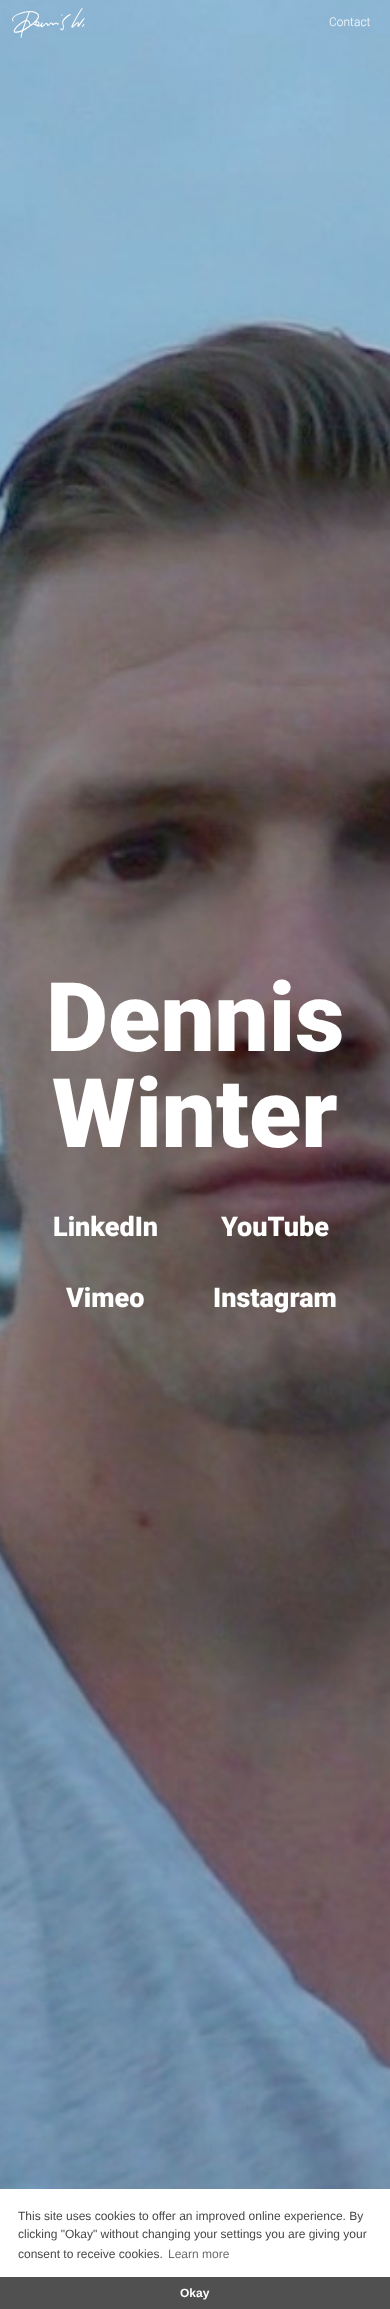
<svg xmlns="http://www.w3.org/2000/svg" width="390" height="2309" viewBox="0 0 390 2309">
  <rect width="100%" height="100%" fill="#fff"/>
  <image x="0" y="0" width="390" height="2189" href="img/1.png"/>
  <image x="12" y="8" width="73" height="30" href="img/2.png"/>
  <path d="M0 2277h390v32H0z" fill="#505050"/>
  <text x="329" y="26" font-family="Roboto" font-size="12" font-weight="300" fill="#fff">Contact</text>
  <g font-family="Roboto" font-size="96" font-weight="900" fill="#fff">
    <text x="46" y="1051">Dennis</text>
    <text x="52" y="1147">Winter</text>
  </g>
  <g font-family="Roboto" font-size="27" font-weight="900" fill="#fff">
    <text x="53" y="1236">LinkedIn</text>
    <text x="221" y="1236">YouTube</text>
    <text x="66" y="1307">Vimeo</text>
    <text x="213" y="1307">Instagram</text>
  </g>
  <g font-family="Liberation Sans" font-size="12" fill="#474747">
    <text x="18" y="2220">This site uses cookies to offer an improved online experience. By</text>
    <text x="18" y="2238">clicking "Okay" without changing your settings you are giving your</text>
    <text x="18" y="2258">consent to receive cookies.</text>
  </g>
  <text x="168" y="2258" font-family="Liberation Sans" font-size="12" fill="#6c6c6c">Learn more</text>
  <text x="180" y="2297" font-family="Liberation Sans" font-size="12" font-weight="bold" fill="#fff">Okay</text>
</svg>
